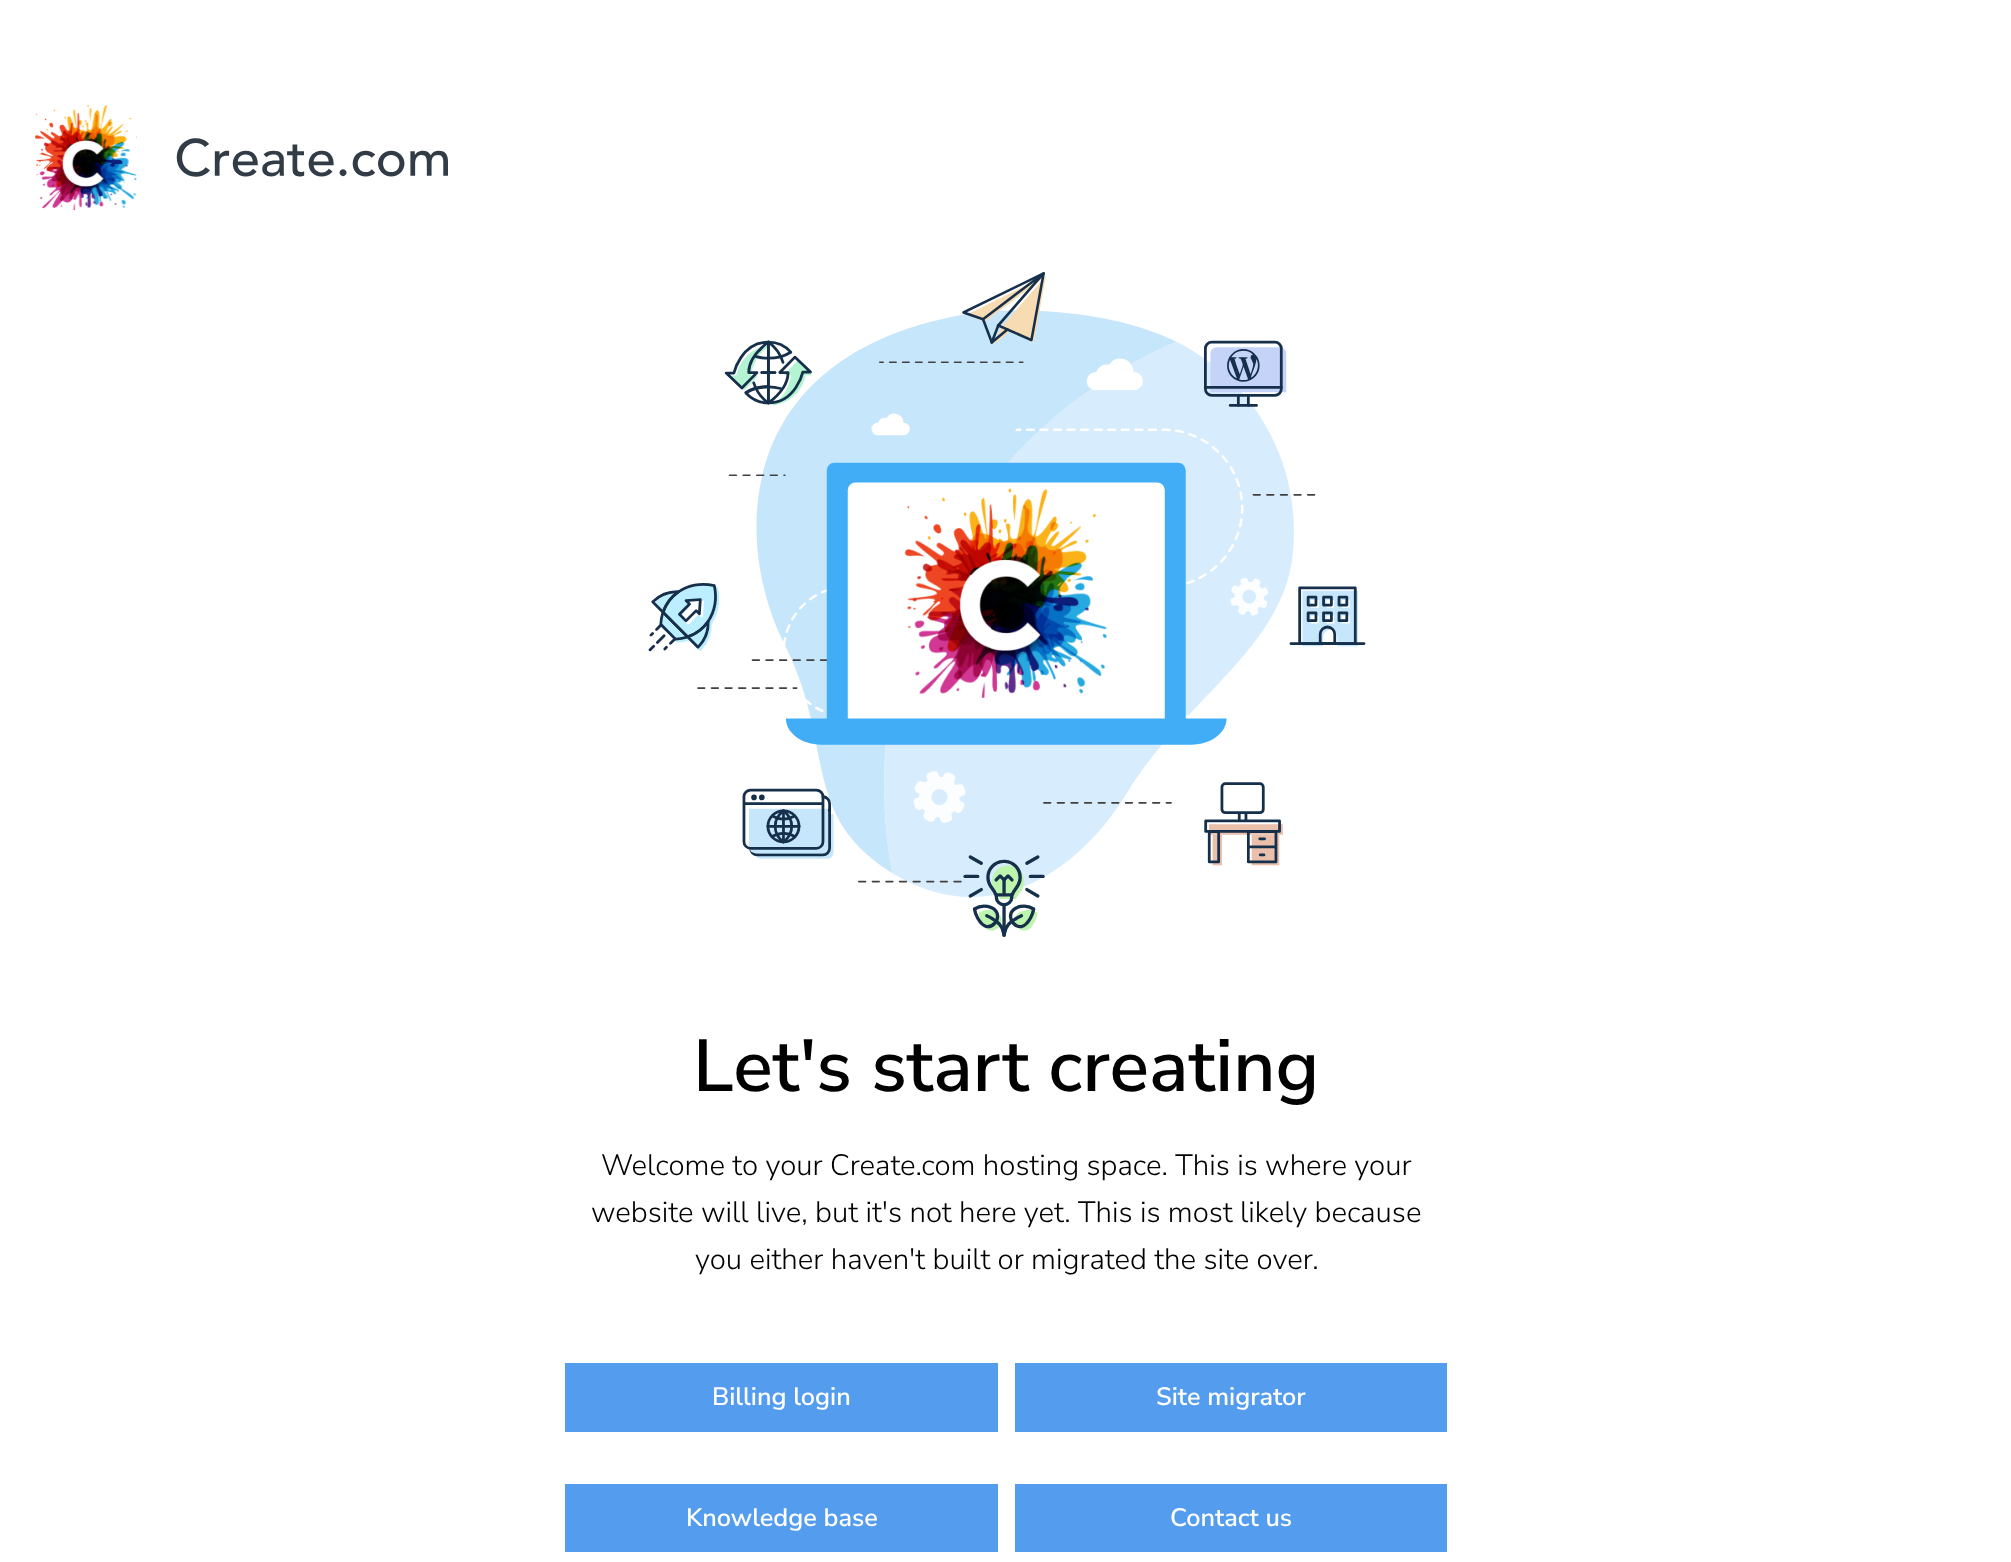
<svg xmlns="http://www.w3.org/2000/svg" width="2011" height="1562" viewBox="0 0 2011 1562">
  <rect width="100%" height="100%" fill="#fff"/>
  <image x="35" y="105" width="413" height="105" href="img/1.png"/>
  <image x="648" y="272" width="718" height="665" href="img/2.png"/>
  <path d="M565 1363h433v69H565z" fill="#539cee"/>
  <path d="M1015 1363h432v69H1015z" fill="#539cee"/>
  <path d="M565 1484h433v68H565z" fill="#539cee"/>
  <path d="M1015 1484h432v68H1015z" fill="#539cee"/>
  <text x="693" y="1091" font-family="Nunito Sans" font-size="73.5" font-weight="600" fill="#000">Let's start creating</text>
  <g font-family="Nunito Sans" font-size="29.4" font-weight="300" fill="#000">
    <text x="601" y="1175">Welcome to your Create.com hosting space. This is where your</text>
    <text x="591" y="1222">website will live, but it's not here yet. This is most likely because</text>
    <text x="695" y="1269">you either haven't built or migrated the site over.</text>
  </g>
  <g font-family="Nunito Sans" font-size="25.25" font-weight="600" fill="#fff">
    <text x="712" y="1405">Billing login</text>
    <text x="1156" y="1405">Site migrator</text>
    <text x="686" y="1526">Knowledge base</text>
    <text x="1170" y="1526">Contact us</text>
  </g>
</svg>
